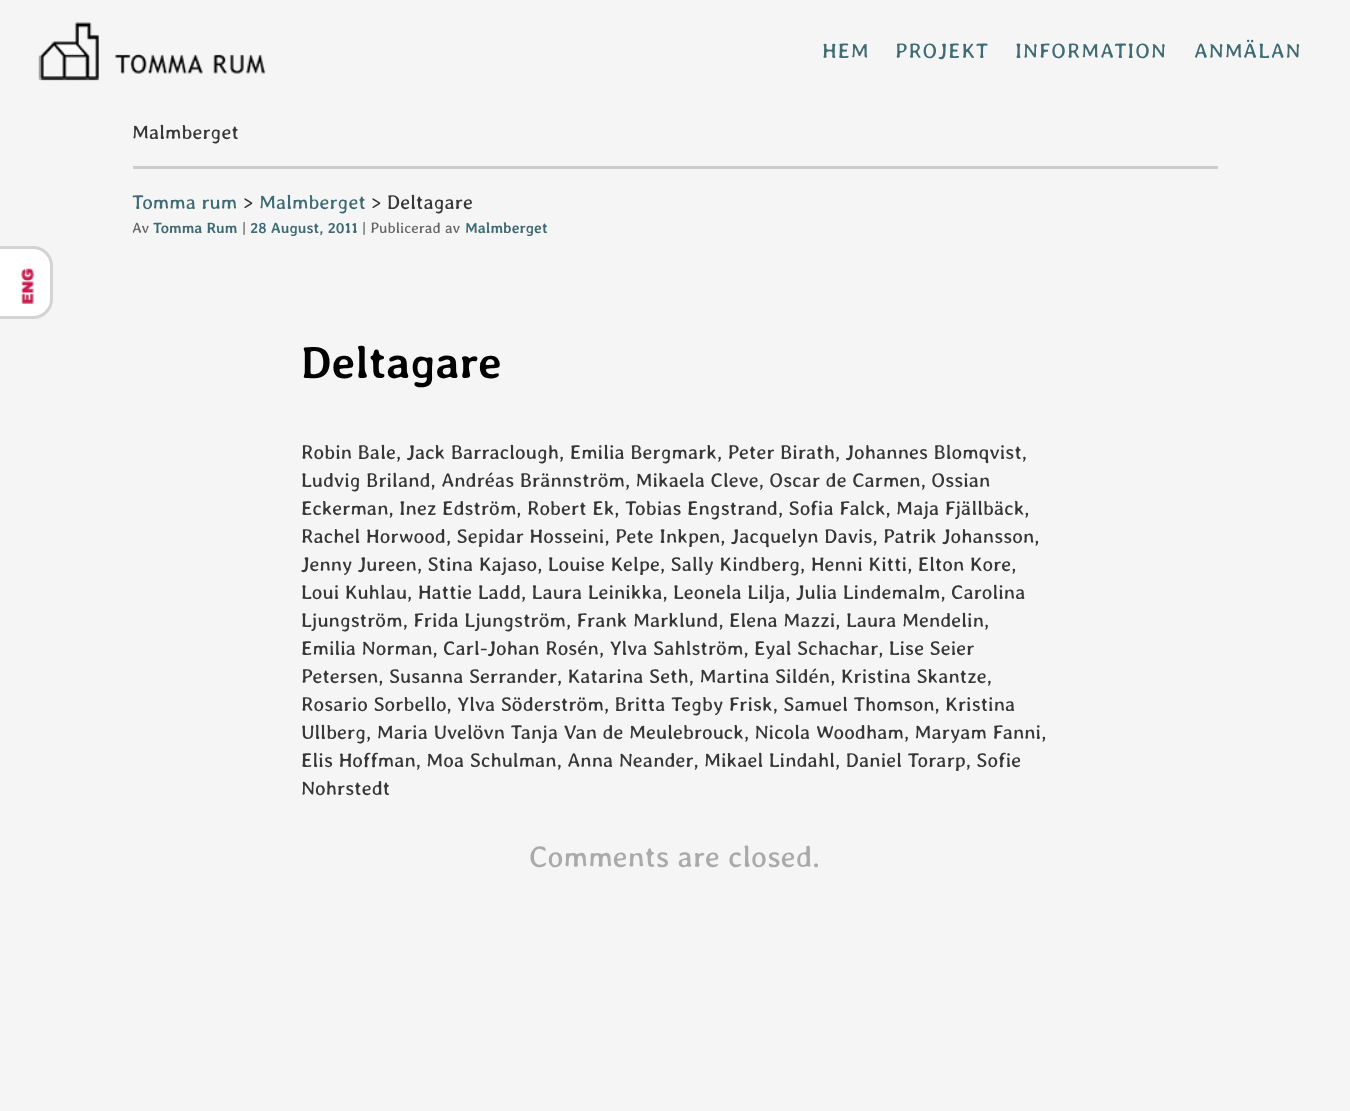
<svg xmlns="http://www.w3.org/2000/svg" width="1350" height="1111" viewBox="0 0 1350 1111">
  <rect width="100%" height="100%" fill="#f5f5f5"/>
  <image x="38" y="22" width="228" height="59" href="img/1.png"/>
  <rect x="-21.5" y="247.5" width="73" height="70" rx="18.5" fill="#fff" stroke="#d3d3d3" stroke-width="3"/>
  <image x="21" y="268" width="13" height="36" href="img/2.png"/>
  <path d="M133 166h1085v3H133z" fill="#ccc"/>
  <g font-family="Averia Libre" font-size="21" letter-spacing="1" fill="#3f6b74">
    <text x="822" y="58">HEM</text>
    <text x="895" y="58">PROJEKT</text>
    <text x="1015" y="58">INFORMATION</text>
    <text x="1194" y="58">ANMÄLAN</text>
  </g>
  <text x="132" y="139" font-family="Averia Libre" font-size="20" fill="#373737">Malmberget</text>
  <text x="132" y="209" font-family="Averia Libre" font-size="20" fill="#3f6b74">Tomma rum</text>
  <text x="243" y="209" font-family="Averia Libre" font-size="20" fill="#373737">&gt;</text>
  <text x="259" y="209" font-family="Averia Libre" font-size="20" fill="#3f6b74">Malmberget</text>
  <text x="371" y="209" font-family="Averia Libre" font-size="20" fill="#373737">&gt; Deltagare</text>
  <text x="132" y="233" font-family="Averia Libre" font-size="15" fill="#666">Av</text>
  <text x="153" y="233" font-family="Averia Libre" font-size="15" font-weight="bold" fill="#3f6b74">Tomma Rum</text>
  <text x="242" y="233" font-family="Averia Libre" font-size="15" fill="#666">|</text>
  <text x="250" y="233" font-family="Averia Libre" font-size="15" font-weight="bold" fill="#3f6b74">28 August, 2011</text>
  <text x="362" y="233" font-family="Averia Libre" font-size="15" fill="#666">| Publicerad av</text>
  <text x="465" y="233" font-family="Averia Libre" font-size="15" font-weight="bold" fill="#3f6b74">Malmberget</text>
  <text x="301" y="378" font-family="Averia Libre" font-size="45" font-weight="bold" fill="#000">Deltagare</text>
  <g font-family="Averia Libre" font-size="20" fill="#373737">
    <text x="301" y="459">Robin Bale, Jack Barraclough, Emilia Bergmark, Peter Birath, Johannes Blomqvist,</text>
    <text x="301" y="487">Ludvig Briland, Andréas Brännström, Mikaela Cleve, Oscar de Carmen, Ossian</text>
    <text x="301" y="515">Eckerman, Inez Edström, Robert Ek, Tobias Engstrand, Sofia Falck, Maja Fjällbäck,</text>
    <text x="301" y="543">Rachel Horwood, Sepidar Hosseini, Pete Inkpen, Jacquelyn Davis, Patrik Johansson,</text>
    <text x="301" y="571">Jenny Jureen, Stina Kajaso, Louise Kelpe, Sally Kindberg, Henni Kitti, Elton Kore,</text>
    <text x="301" y="599">Loui Kuhlau, Hattie Ladd, Laura Leinikka, Leonela Lilja, Julia Lindemalm, Carolina</text>
    <text x="301" y="627">Ljungström, Frida Ljungström, Frank Marklund, Elena Mazzi, Laura Mendelin,</text>
    <text x="301" y="655">Emilia Norman, Carl-Johan Rosén, Ylva Sahlström, Eyal Schachar, Lise Seier</text>
    <text x="301" y="683">Petersen, Susanna Serrander, Katarina Seth, Martina Sildén, Kristina Skantze,</text>
    <text x="301" y="711">Rosario Sorbello, Ylva Söderström, Britta Tegby Frisk, Samuel Thomson, Kristina</text>
    <text x="301" y="739">Ullberg, Maria Uvelövn Tanja Van de Meulebrouck, Nicola Woodham, Maryam Fanni,</text>
    <text x="301" y="767">Elis Hoffman, Moa Schulman, Anna Neander, Mikael Lindahl, Daniel Torarp, Sofie</text>
    <text x="301" y="795">Nohrstedt</text>
  </g>
  <text x="529" y="867" font-family="Averia Libre" font-size="30" fill="#aaa">Comments are closed.</text>
</svg>
